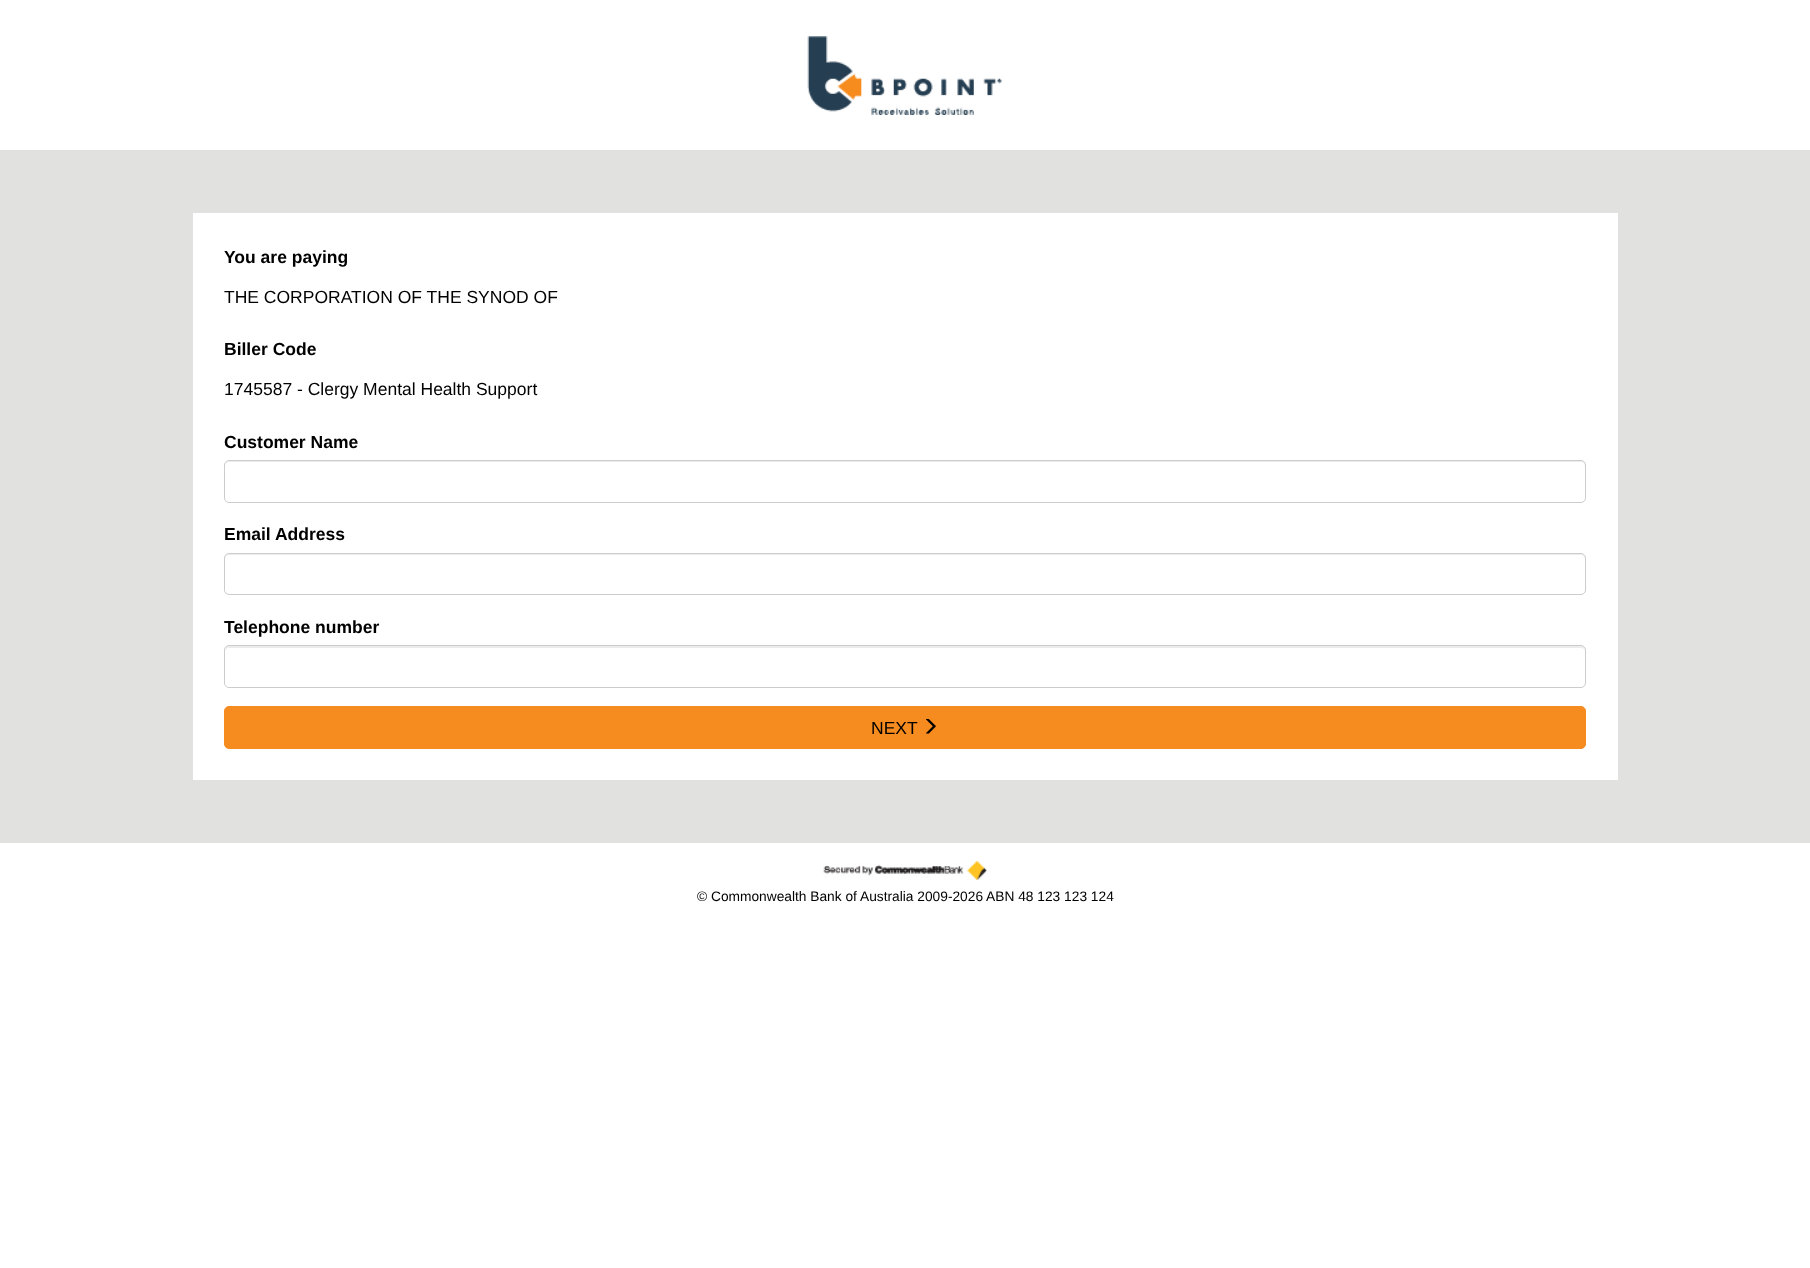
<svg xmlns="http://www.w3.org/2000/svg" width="1810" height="1268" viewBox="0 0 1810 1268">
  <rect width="100%" height="100%" fill="#fff"/>
  <image x="807" y="36" width="196" height="79" href="img/1.png"/>
  <path d="M0 150h1810v693H0z" fill="#e1e1e0"/>
  <path d="M193 213h1425v567H193z" fill="#fff"/>
  <path d="M229 462H1581C1583 462 1585 464 1585 466V465C1585 463 1583 461 1581 461H229C227 461 225 463 225 465V466C225 464 227 462 229 462Z" fill="#ececec"/>
  <rect x="224.5" y="460.5" width="1361" height="42" rx="4.5" fill="none" stroke="#ccc"/>
  <path d="M229 555H1581C1583 555 1585 557 1585 559V558C1585 556 1583 554 1581 554H229C227 554 225 556 225 558V559C225 557 227 555 229 555Z" fill="#ececec"/>
  <rect x="224.5" y="553.5" width="1361" height="41" rx="4.5" fill="none" stroke="#ccc"/>
  <path d="M229 648H1581C1583 648 1585 649 1585 651V650C1585 648 1583 646 1581 646H229C227 646 225 648 225 650V651C225 649 227 648 229 648Z" fill="#ececec"/>
  <rect x="224.5" y="645.5" width="1361" height="42" rx="4.5" fill="none" stroke="#ccc"/>
  <rect x="224.5" y="706.5" width="1361" height="42" rx="4.5" fill="#f68b1f" stroke="#f68b1f"/>
  <image x="926" y="719" width="10" height="15" href="img/2.png"/>
  <image x="823" y="861" width="164" height="19" href="img/3.png"/>
  <text x="224" y="263" font-family="Liberation Sans" font-size="17.5" font-weight="bold" fill="#000">You are paying</text>
  <text x="224" y="303" font-family="Liberation Sans" font-size="17.5" fill="#000">THE CORPORATION OF THE SYNOD OF</text>
  <text x="224" y="355" font-family="Liberation Sans" font-size="17.5" font-weight="bold" fill="#000">Biller Code</text>
  <text x="224" y="395" font-family="Liberation Sans" font-size="17.5" fill="#000">1745587 - Clergy Mental Health Support</text>
  <g font-family="Liberation Sans" font-size="17.5" font-weight="bold" fill="#000">
    <text x="224" y="448">Customer Name</text>
    <text x="224" y="540">Email Address</text>
    <text x="224" y="633">Telephone number</text>
  </g>
  <text x="871" y="734" font-family="Liberation Sans" font-size="17.5" fill="#000">NEXT</text>
  <text x="697" y="901" font-family="Liberation Sans" font-size="13.75" fill="#000">© Commonwealth Bank of Australia 2009-2026 ABN 48 123 123 124</text>
</svg>
